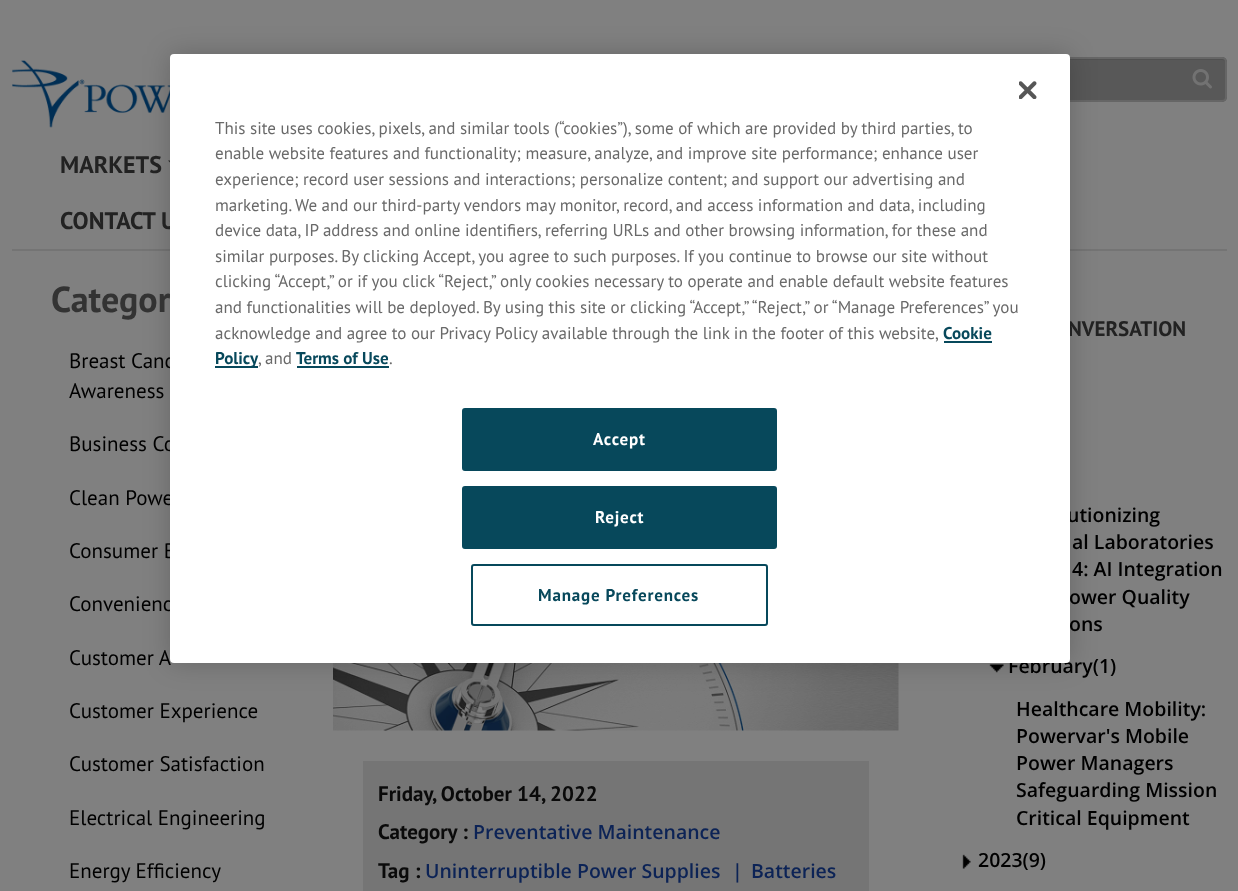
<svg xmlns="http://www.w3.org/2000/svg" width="1238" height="891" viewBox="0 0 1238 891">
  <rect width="100%" height="100%" fill="#808080"/>
  <image x="12" y="60" width="158" height="68" href="img/2.png"/>
  <rect x="887" y="57" width="340" height="45" rx="5" fill="#585858"/>
  <path d="M891 60H1222C1224 60 1226 61 1226 63C1226 61 1225 59 1223 59H891C889 59 888 61 888 63C888 61 889 60 891 60Z" fill="#515151"/>
  <rect x="888" y="58" width="338" height="43" rx="4" fill="none" stroke="#666" stroke-width="2"/>
  <path d="M12 249h1215v2H12z" fill="#747474"/>
  <path d="M168 160.5H183L175.5 168Z" fill="#2b2b2b"/>
  <image x="333" y="663" width="566" height="68" href="img/4.png"/>
  <image x="989" y="664" width="15" height="9" href="img/5.png"/>
  <rect x="170" y="54" width="900" height="609" rx="4" fill="#00000033" filter="blur(13.5px)"/>
  <image x="1192" y="69" width="20" height="20" href="img/3.png"/>
  <path d="M363 761h506v130H363z" fill="#757575"/>
  <image x="962" y="854" width="9" height="15" href="img/6.png"/>
  <g font-family="PT Sans" font-size="24" font-weight="bold" fill="#222">
    <text x="60" y="173">MARKETS</text>
    <text x="60" y="229">CONTACT U</text>
  </g>
  <text x="51" y="312" font-family="PT Sans" font-size="36" font-weight="bold" fill="#333">Categor</text>
  <g font-family="PT Sans" font-size="21" fill="#000">
    <text x="69" y="368">Breast Canc</text>
    <text x="69" y="398">Awareness</text>
    <text x="69" y="451">Business Co</text>
    <text x="69" y="505">Clean Powe</text>
    <text x="69" y="558">Consumer B</text>
    <text x="69" y="611">Convenienc</text>
    <text x="69" y="665">Customer A</text>
    <text x="69" y="718">Customer Experience</text>
    <text x="69" y="771">Customer Satisfaction</text>
    <text x="69" y="825">Electrical Engineering</text>
    <text x="69" y="878">Energy Efficiency</text>
  </g>
  <g font-family="PT Sans" font-size="21" font-weight="bold" fill="#0a0a0a">
    <text x="378" y="801">Friday, October 14, 2022</text>
    <text x="378" y="839">Category :</text>
  </g>
  <text x="473" y="839" font-family="Open Sans" font-size="19.5" font-weight="600" fill="#0c2356">Preventative Maintenance</text>
  <text x="378" y="878" font-family="PT Sans" font-size="21" font-weight="bold" fill="#0a0a0a">Tag :</text>
  <g font-family="Open Sans" font-size="19.5" font-weight="600" fill="#0c2356">
    <text x="425" y="878">Uninterruptible Power Supplies</text>
    <text x="732" y="878">|</text>
    <text x="751" y="878">Batteries</text>
  </g>
  <text x="1068" y="336" font-family="PT Sans" font-size="21" font-weight="bold" fill="#222">NVERSATION</text>
  <g font-family="Open Sans" font-size="19.5" font-weight="600" fill="#000">
    <text x="1067" y="522">utionizing</text>
    <text x="1072" y="549">al Laboratories</text>
    <text x="1072" y="576">4: AI Integration</text>
    <text x="1069" y="604">ower Quality</text>
    <text x="1069" y="631">ons</text>
    <text x="1008" y="673">February(1)</text>
  </g>
  <rect x="170" y="54" width="900" height="609" rx="4" fill="#fff"/>
  <image x="1019" y="81" width="18" height="18" href="img/1.png"/>
  <rect x="463" y="409" width="313" height="61" rx="2" fill="#07485b" stroke="#07485b" stroke-width="2"/>
  <text x="593" y="445" font-family="PT Sans" font-size="17.05" font-weight="bold" letter-spacing="0.8" fill="#fff">Accept</text>
  <rect x="463" y="487" width="313" height="61" rx="2" fill="#07485b" stroke="#07485b" stroke-width="2"/>
  <text x="595" y="523" font-family="PT Sans" font-size="17.05" font-weight="bold" letter-spacing="0.8" fill="#fff">Reject</text>
  <rect x="472" y="565" width="295" height="60" rx="2" fill="none" stroke="#07485b" stroke-width="2"/>
  <text x="538" y="601" font-family="PT Sans" font-size="17.05" font-weight="bold" letter-spacing="0.8" fill="#07485b">Manage Preferences</text>
  <text x="389" y="364" font-family="PT Sans" font-size="17.05" fill="#696969">.</text>
  <text x="296" y="364" font-family="PT Sans" font-size="17.05" font-weight="bold" fill="#07485b">Terms of Use</text>
  <path d="M297 366h92v2H297z" fill="#07485b"/>
  <text x="258" y="364" font-family="PT Sans" font-size="17.05" fill="#696969">, and</text>
  <path d="M215 366h43v2H215z" fill="#07485b"/>
  <g font-family="PT Sans" font-size="17.05" font-weight="bold" fill="#07485b">
    <text x="215" y="364">Policy</text>
    <text x="943" y="339">Cookie</text>
  </g>
  <path d="M944 341h48v2H944z" fill="#07485b"/>
  <g font-family="PT Sans" font-size="17.05" fill="#696969">
    <text x="215" y="339">acknowledge and agree to our Privacy Policy available through the link in the footer of this website,</text>
    <text x="215" y="313">and functionalities will be deployed. By using this site or clicking “Accept,” “Reject,” or “Manage Preferences” you</text>
    <text x="215" y="287">clicking “Accept,” or if you click “Reject,” only cookies necessary to operate and enable default website features</text>
    <text x="215" y="262">similar purposes. By clicking Accept, you agree to such purposes. If you continue to browse our site without</text>
    <text x="215" y="236">device data, IP address and online identifiers, referring URLs and other browsing information, for these and</text>
    <text x="215" y="211">marketing. We and our third-party vendors may monitor, record, and access information and data, including</text>
    <text x="215" y="185">experience; record user sessions and interactions; personalize content; and support our advertising and</text>
    <text x="215" y="159">enable website features and functionality; measure, analyze, and improve site performance; enhance user</text>
    <text x="215" y="134">This site uses cookies, pixels, and similar tools (“cookies”), some of which are provided by third parties, to</text>
  </g>
  <g font-family="Open Sans" font-size="19.5" font-weight="600" fill="#000">
    <text x="1016" y="716">Healthcare Mobility:</text>
    <text x="1016" y="743">Powervar's Mobile</text>
    <text x="1016" y="770">Power Managers</text>
    <text x="1016" y="797">Safeguarding Mission</text>
    <text x="1016" y="825">Critical Equipment</text>
    <text x="978" y="867">2023(9)</text>
  </g>
</svg>
